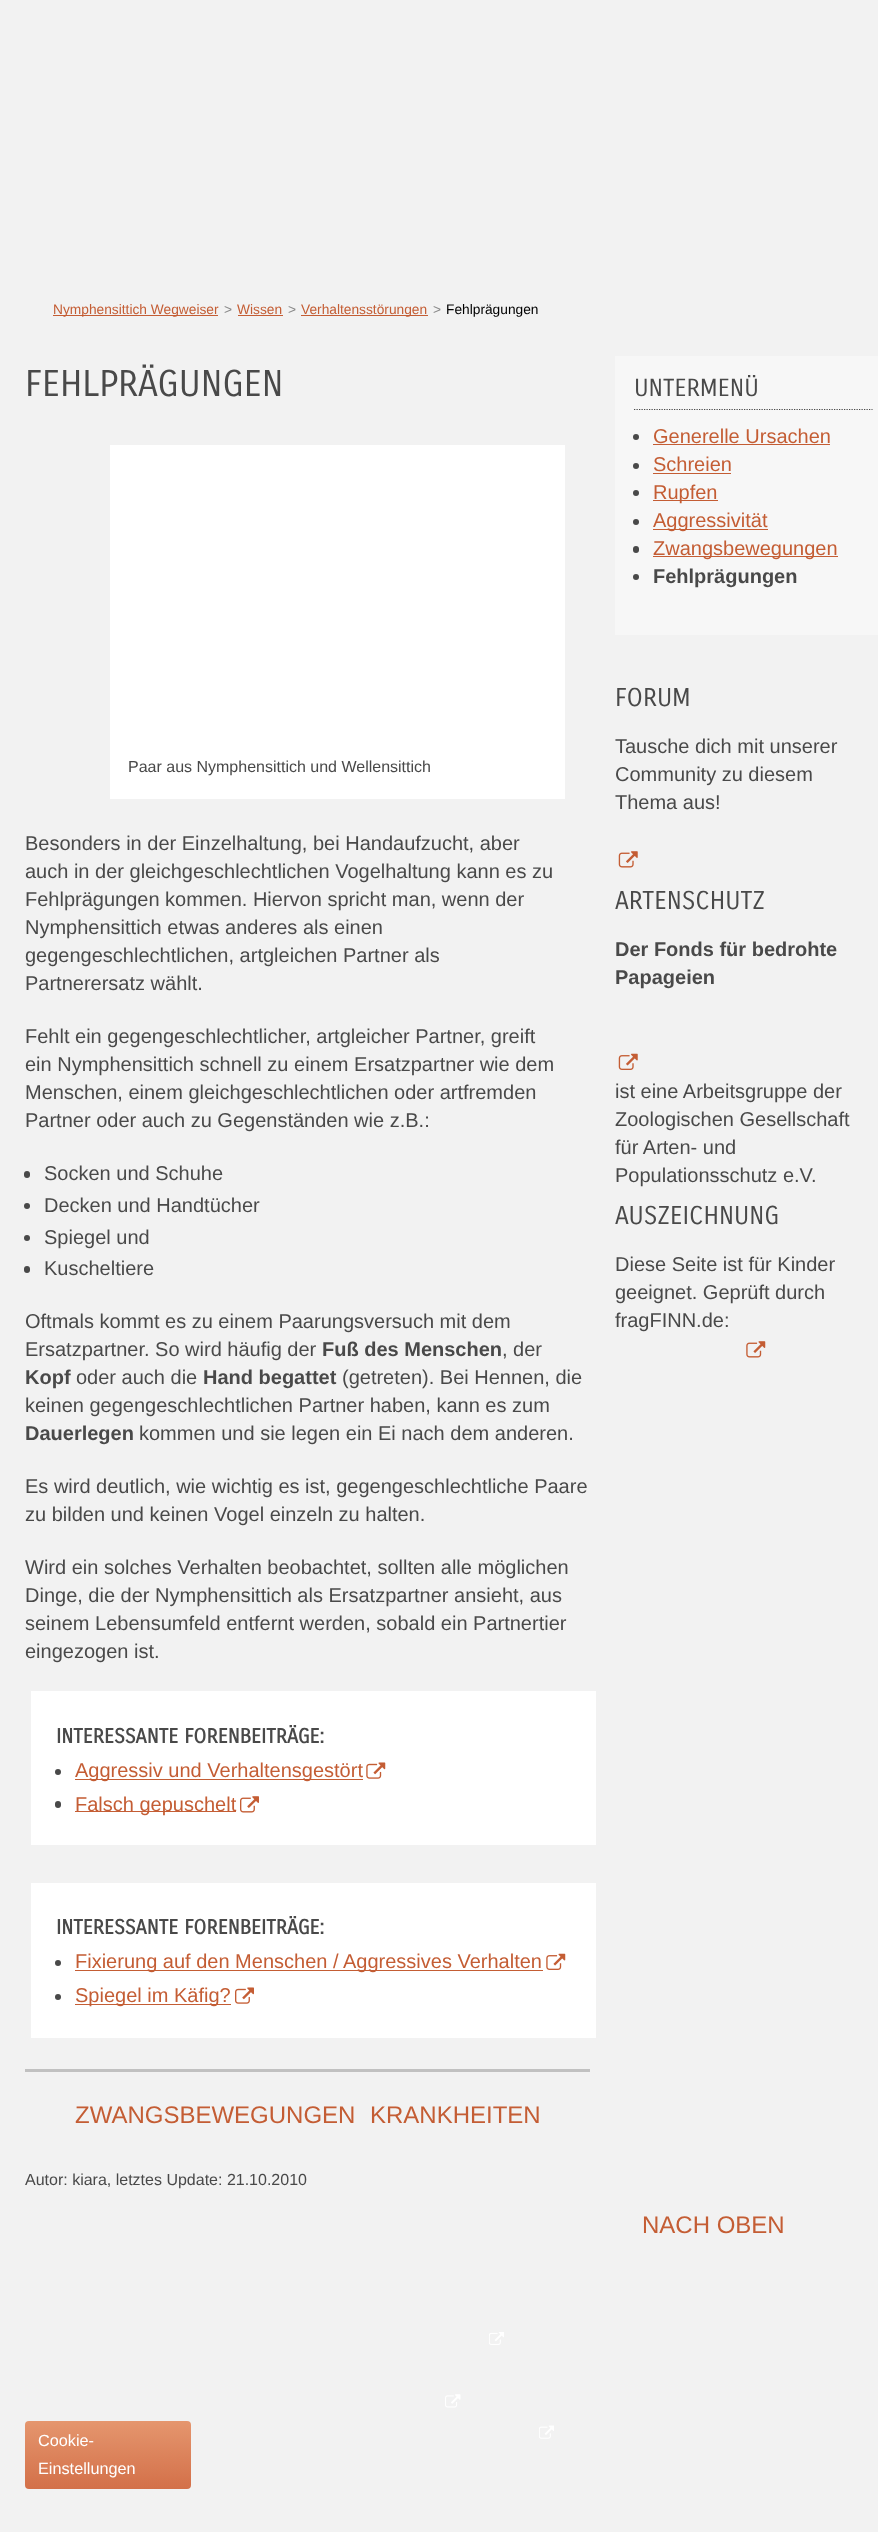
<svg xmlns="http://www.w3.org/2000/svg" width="878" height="2532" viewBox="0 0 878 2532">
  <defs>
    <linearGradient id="g1" gradientUnits="userSpaceOnUse" x1="108" y1="2421" x2="108" y2="2489"><stop offset="0" stop-color="#e5966e"/><stop offset="1" stop-color="#d37049"/></linearGradient>
  </defs>
  <rect width="100%" height="100%" fill="#f2f2f2"/>
  <path d="M53 315h165v1H53z" fill="#c45d34"/>
  <path d="M238 315h45v1H238z" fill="#c45d34"/>
  <path d="M301 315h127v1H301z" fill="#c45d34"/>
  <path d="M110 445h455v354H110z" fill="#fff"/>
  <rect x="24" y="1171" width="6" height="7" rx="3" fill="#494949"/>
  <circle cx="27" cy="1206" r="3" fill="#494949"/>
  <circle cx="27" cy="1238" r="3" fill="#494949"/>
  <rect x="24" y="1266" width="6" height="7" rx="3" fill="#494949"/>
  <path d="M31 1691h565v154H31z" fill="#fff"/>
  <circle cx="58" cy="1772" r="3" fill="#494949"/>
  <path d="M75 1779h288v1H75z" fill="#c45d34"/>
  <image x="366" y="1762" width="20" height="17" href="img/1.png"/>
  <rect x="55" y="1801" width="6" height="7" rx="3" fill="#494949"/>
  <path d="M75 1811h161v1H75z" fill="#c45d34"/>
  <image x="240" y="1796" width="19" height="17" href="img/2.png"/>
  <path d="M31 1883h565v155H31z" fill="#fff"/>
  <circle cx="58" cy="1963" r="3" fill="#494949"/>
  <path d="M75 1970h468v1H75z" fill="#c45d34"/>
  <image x="546" y="1953" width="20" height="17" href="img/3.png"/>
  <circle cx="58" cy="1997" r="3" fill="#494949"/>
  <path d="M75 2004h156v1H75z" fill="#c45d34"/>
  <image x="235" y="1987" width="19" height="17" href="img/4.png"/>
  <path d="M25 2069h565v3H25z" fill="#c1c1c1"/>
  <path d="M615 356h263v279H615z" fill="#f7f7f7"/>
  <path d="M634 409.5H872.5" fill="none" stroke="#494949" stroke-width="1.2" stroke-dasharray="1.25 1.25"/>
  <circle cx="636" cy="437" r="3" fill="#494949"/>
  <path d="M653 444h177v1H653z" fill="#c45d34"/>
  <circle cx="636" cy="466" r="3" fill="#494949"/>
  <path d="M653 473h78v1H653z" fill="#c45d34"/>
  <circle cx="636" cy="493" r="3" fill="#494949"/>
  <path d="M653 500h65v1H653z" fill="#c45d34"/>
  <circle cx="636" cy="522" r="3" fill="#494949"/>
  <path d="M653 529h115v1H653z" fill="#c45d34"/>
  <rect x="633" y="546" width="6" height="7" rx="3" fill="#494949"/>
  <path d="M653 556h185v1H653z" fill="#c45d34"/>
  <circle cx="636" cy="577" r="3" fill="#494949"/>
  <image x="618" y="851" width="20" height="17" href="img/5.png"/>
  <image x="618" y="1053" width="20" height="17" href="img/6.png"/>
  <image x="746" y="1341" width="20" height="17" href="img/7.png"/>
  <image x="489" y="2332" width="15" height="13" href="img/8.png"/>
  <image x="445" y="2394" width="16" height="14" href="img/9.png"/>
  <image x="539" y="2425" width="15" height="14" href="img/10.png"/>
  <rect x="25" y="2421" width="166" height="68" rx="4" fill="url(#g1)"/>
  <text x="53" y="314" font-family="Liberation Sans" font-size="13.75" fill="#c45d34">Nymphensittich Wegweiser</text>
  <text x="224" y="314" font-family="Liberation Sans" font-size="13.75" fill="#888">&gt;</text>
  <text x="237" y="314" font-family="Liberation Sans" font-size="13.75" fill="#c45d34">Wissen</text>
  <text x="288" y="314" font-family="Liberation Sans" font-size="13.75" fill="#888">&gt;</text>
  <text x="301" y="314" font-family="Liberation Sans" font-size="13.75" fill="#c45d34">Verhaltensstörungen</text>
  <text x="433" y="314" font-family="Liberation Sans" font-size="13.75" fill="#888">&gt;</text>
  <text x="446" y="314" font-family="Liberation Sans" font-size="13.75" fill="#000">Fehlprägungen</text>
  <text x="25" y="396" font-family="Carrois Gothic" font-size="36" fill="#494949">FEHLPRÄGUNGEN</text>
  <text x="128" y="772" font-family="Liberation Sans" font-size="16" fill="#494949">Paar aus Nymphensittich und Wellensittich</text>
  <g font-family="Liberation Sans" font-size="20" fill="#494949">
    <text x="25" y="850">Besonders in der Einzelhaltung, bei Handaufzucht, aber</text>
    <text x="25" y="878">auch in der gleichgeschlechtlichen Vogelhaltung kann es zu</text>
    <text x="25" y="906">Fehlprägungen kommen. Hiervon spricht man, wenn der</text>
    <text x="25" y="934">Nymphensittich etwas anderes als einen</text>
    <text x="25" y="962">gegengeschlechtlichen, artgleichen Partner als</text>
    <text x="25" y="990">Partnerersatz wählt.</text>
    <text x="25" y="1043">Fehlt ein gegengeschlechtlicher, artgleicher Partner, greift</text>
    <text x="25" y="1071">ein Nymphensittich schnell zu einem Ersatzpartner wie dem</text>
    <text x="25" y="1099">Menschen, einem gleichgeschlechtlichen oder artfremden</text>
    <text x="25" y="1127">Partner oder auch zu Gegenständen wie z.B.:</text>
    <text x="44" y="1180">Socken und Schuhe</text>
    <text x="44" y="1212">Decken und Handtücher</text>
    <text x="44" y="1244">Spiegel und</text>
    <text x="44" y="1275">Kuscheltiere</text>
    <text x="25" y="1328">Oftmals kommt es zu einem Paarungsversuch mit dem</text>
    <text x="25" y="1356">Ersatzpartner. So wird häufig der</text>
  </g>
  <text x="322" y="1356" font-family="Liberation Sans" font-size="20" font-weight="bold" fill="#494949">Fuß des Menschen</text>
  <text x="502" y="1356" font-family="Liberation Sans" font-size="20" fill="#494949">, der</text>
  <text x="25" y="1384" font-family="Liberation Sans" font-size="20" font-weight="bold" fill="#494949">Kopf</text>
  <text x="76" y="1384" font-family="Liberation Sans" font-size="20" fill="#494949">oder auch die</text>
  <text x="203" y="1384" font-family="Liberation Sans" font-size="20" font-weight="bold" fill="#494949">Hand begattet</text>
  <g font-family="Liberation Sans" font-size="20" fill="#494949">
    <text x="342" y="1384">(getreten). Bei Hennen, die</text>
    <text x="25" y="1412">keinen gegengeschlechtlichen Partner haben, kann es zum</text>
  </g>
  <text x="25" y="1440" font-family="Liberation Sans" font-size="20" font-weight="bold" fill="#494949">Dauerlegen</text>
  <g font-family="Liberation Sans" font-size="20" fill="#494949">
    <text x="139" y="1440">kommen und sie legen ein Ei nach dem anderen.</text>
    <text x="25" y="1493">Es wird deutlich, wie wichtig es ist, gegengeschlechtliche Paare</text>
    <text x="25" y="1521">zu bilden und keinen Vogel einzeln zu halten.</text>
    <text x="25" y="1574">Wird ein solches Verhalten beobachtet, sollten alle möglichen</text>
    <text x="25" y="1602">Dinge, die der Nymphensittich als Ersatzpartner ansieht, aus</text>
    <text x="25" y="1630">seinem Lebensumfeld entfernt werden, sobald ein Partnertier</text>
    <text x="25" y="1658">eingezogen ist.</text>
  </g>
  <text x="56" y="1743" font-family="Carrois Gothic" font-size="20" font-weight="bold" fill="#494949">INTERESSANTE FORENBEITRÄGE:</text>
  <g font-family="Liberation Sans" font-size="20" fill="#c45d34">
    <text x="75" y="1777">Aggressiv und Verhaltensgestört</text>
    <text x="75" y="1811">Falsch gepuschelt</text>
  </g>
  <text x="56" y="1934" font-family="Carrois Gothic" font-size="20" font-weight="bold" fill="#494949">INTERESSANTE FORENBEITRÄGE:</text>
  <g font-family="Liberation Sans" font-size="20" fill="#c45d34">
    <text x="75" y="1968">Fixierung auf den Menschen / Aggressives Verhalten</text>
    <text x="75" y="2002">Spiegel im Käfig?</text>
  </g>
  <g font-family="Liberation Sans" font-size="24" fill="#c45d34">
    <text x="75" y="2123">ZWANGSBEWEGUNGEN</text>
    <text x="370" y="2123">KRANKHEITEN</text>
  </g>
  <text x="25" y="2185" font-family="Liberation Sans" font-size="16" fill="#494949">Autor: kiara, letztes Update: 21.10.2010</text>
  <text x="634" y="396" font-family="Carrois Gothic" font-size="24" fill="#494949">UNTERMENÜ</text>
  <g font-family="Liberation Sans" font-size="20" fill="#c45d34">
    <text x="653" y="443">Generelle Ursachen</text>
    <text x="653" y="471">Schreien</text>
    <text x="653" y="499">Rupfen</text>
    <text x="653" y="527">Aggressivität</text>
    <text x="653" y="555">Zwangsbewegungen</text>
  </g>
  <text x="653" y="583" font-family="Liberation Sans" font-size="20" font-weight="bold" fill="#494949">Fehlprägungen</text>
  <text x="615" y="706" font-family="Carrois Gothic" font-size="25" fill="#494949">FORUM</text>
  <g font-family="Liberation Sans" font-size="20" fill="#494949">
    <text x="615" y="753">Tausche dich mit unserer</text>
    <text x="615" y="781">Community zu diesem</text>
    <text x="615" y="809">Thema aus!</text>
  </g>
  <text x="615" y="909" font-family="Carrois Gothic" font-size="25" fill="#494949">ARTENSCHUTZ</text>
  <g font-family="Liberation Sans" font-size="20" font-weight="bold" fill="#494949">
    <text x="615" y="956">Der Fonds für bedrohte</text>
    <text x="615" y="984">Papageien</text>
  </g>
  <g font-family="Liberation Sans" font-size="20" fill="#494949">
    <text x="615" y="1098">ist eine Arbeitsgruppe der</text>
    <text x="615" y="1126">Zoologischen Gesellschaft</text>
    <text x="615" y="1154">für Arten- und</text>
    <text x="615" y="1182">Populationsschutz e.V.</text>
  </g>
  <text x="615" y="1224" font-family="Carrois Gothic" font-size="25" fill="#494949">AUSZEICHNUNG</text>
  <g font-family="Liberation Sans" font-size="20" fill="#494949">
    <text x="615" y="1271">Diese Seite ist für Kinder</text>
    <text x="615" y="1299">geeignet. Geprüft durch</text>
    <text x="615" y="1327">fragFINN.de:</text>
  </g>
  <text x="642" y="2233" font-family="Liberation Sans" font-size="24" fill="#c45d34">NACH OBEN</text>
  <g font-family="Liberation Sans" font-size="16.25" fill="#fff">
    <text x="38" y="2446">Cookie-</text>
    <text x="38" y="2474">Einstellungen</text>
  </g>
</svg>
